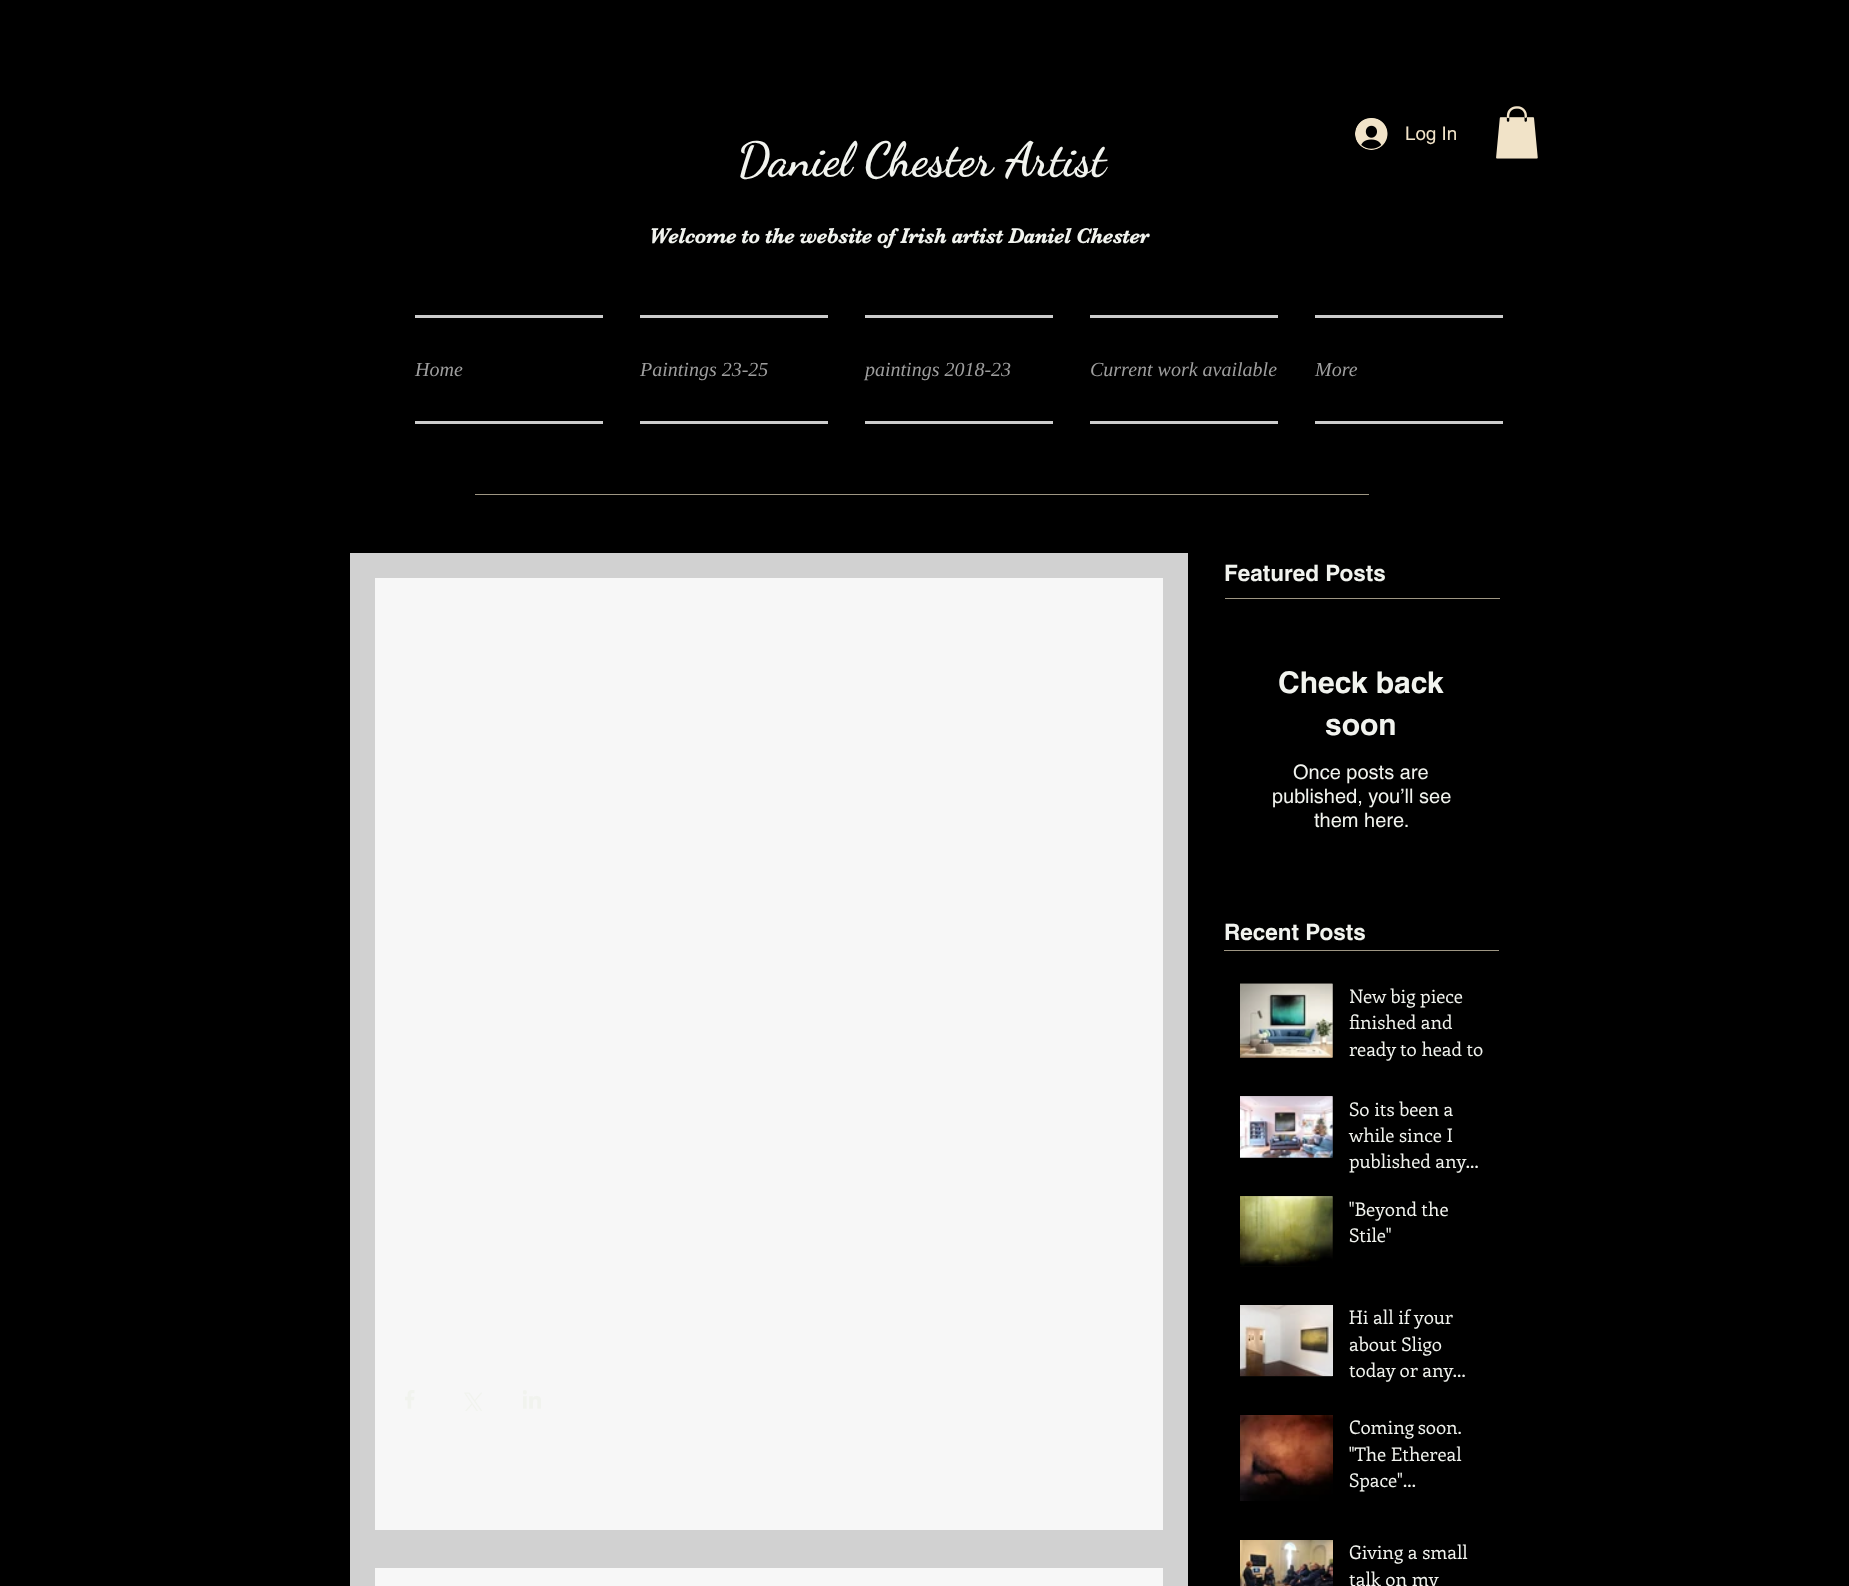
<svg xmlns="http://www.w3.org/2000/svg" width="1849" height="1586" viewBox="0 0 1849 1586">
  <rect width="100%" height="100%" fill="#000"/>
  <image x="1355" y="118" width="33" height="32" href="img/1.png"/>
  <image x="1496" y="106" width="42" height="53" href="img/2.png"/>
  <path d="M415 315h188v3H415z" fill="#ccc"/>
  <path d="M415 421h188v3H415z" fill="#ccc"/>
  <path d="M640 315h188v3H640z" fill="#ccc"/>
  <path d="M640 421h188v3H640z" fill="#ccc"/>
  <path d="M865 315h188v3H865z" fill="#ccc"/>
  <path d="M865 421h188v3H865z" fill="#ccc"/>
  <path d="M1090 315h188v3H1090z" fill="#ccc"/>
  <path d="M1090 421h188v3H1090z" fill="#ccc"/>
  <path d="M1315 315h188v3H1315z" fill="#ccc"/>
  <path d="M1315 421h188v3H1315z" fill="#ccc"/>
  <path d="M475 494h894v1H475z" fill="#9e9683"/>
  <path d="M350 553h838v1033H350z" fill="#d1d1d1"/>
  <path d="M375 578h788v952H375z" fill="#f7f7f7"/>
  <image x="405" y="1390" width="10" height="19" href="img/3.png"/>
  <image x="464" y="1392" width="18" height="19" href="img/4.png"/>
  <image x="523" y="1390" width="18" height="19" href="img/5.png"/>
  <path d="M375 1568h788v18H375z" fill="#f7f7f7"/>
  <path d="M1225 598h275v1H1225z" fill="#9e9683"/>
  <path d="M1224 950h275v1H1224z" fill="#9e9683"/>
  <image x="1240" y="983" width="93" height="75" href="img/6.png"/>
  <image x="1240" y="983" width="93" height="75" href="img/7.png"/>
  <image x="1240" y="1096" width="93" height="62" href="img/8.png"/>
  <image x="1240" y="1096" width="93" height="62" href="img/9.png"/>
  <image x="1240" y="1196" width="93" height="71" href="img/10.png"/>
  <image x="1240" y="1196" width="93" height="70" href="img/11.png"/>
  <image x="1240" y="1305" width="93" height="71" href="img/12.png"/>
  <image x="1240" y="1376" width="93" height="1" href="img/13.png"/>
  <image x="1240" y="1415" width="93" height="86" href="img/14.png"/>
  <image x="1240" y="1540" width="93" height="46" href="img/15.png"/>
  <text x="1405" y="140" font-family="helvetica" font-size="18.75" fill="#f1e3c8">Log In</text>
  <text x="737" y="175" font-family="Dancing Script" font-size="47.5" font-weight="bold" fill="#f1f3ee">Daniel Chester Artist</text>
  <text x="649" y="243" font-family="'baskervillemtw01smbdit'" font-size="21.25" font-weight="bold" fill="#f1f3ee">Welcome to the website of Irish artist Daniel Chester</text>
  <g font-family="Liberation Serif" font-size="20" font-style="italic" fill="#9e9e9e">
    <text x="415" y="376">Home</text>
    <text x="640" y="376">Paintings 23-25</text>
    <text x="865" y="376">paintings 2018-23</text>
    <text x="1090" y="376">Current work available</text>
    <text x="1315" y="376">More</text>
  </g>
  <text x="1224" y="581" font-family="helvetica" font-size="22.5" font-weight="bold" fill="#f1f3ee">Featured Posts</text>
  <g font-family="helvetica" font-size="30" font-weight="bold" fill="#f1f3ee">
    <text x="1278" y="693">Check back</text>
    <text x="1325" y="735">soon</text>
  </g>
  <g font-family="helvetica" font-size="20" fill="#f1f3ee">
    <text x="1293" y="779">Once posts are</text>
    <text x="1272" y="803">published, you’ll see</text>
    <text x="1314" y="827">them here.</text>
  </g>
  <text x="1224" y="940" font-family="helvetica" font-size="22.5" font-weight="bold" fill="#f1f3ee">Recent Posts</text>
  <g font-family="Enriqueta" font-size="18.75" fill="#f1f3ee">
    <text x="1349" y="1003">New big piece</text>
    <text x="1349" y="1029">finished and</text>
    <text x="1349" y="1056">ready to head to</text>
    <text x="1349" y="1116">So its been a</text>
    <text x="1349" y="1142">while since I</text>
    <text x="1349" y="1168">published any…</text>
    <text x="1349" y="1216">"Beyond the</text>
    <text x="1349" y="1242">Stile"</text>
    <text x="1349" y="1324">Hi all if your</text>
    <text x="1349" y="1351">about Sligo</text>
    <text x="1349" y="1377">today or any…</text>
    <text x="1349" y="1434" word-spacing="-1">Coming soon.</text>
    <text x="1349" y="1461">"The Ethereal</text>
    <text x="1349" y="1487">Space"…</text>
    <text x="1349" y="1559">Giving a small</text>
    <text x="1349" y="1586">talk on my</text>
  </g>
</svg>
